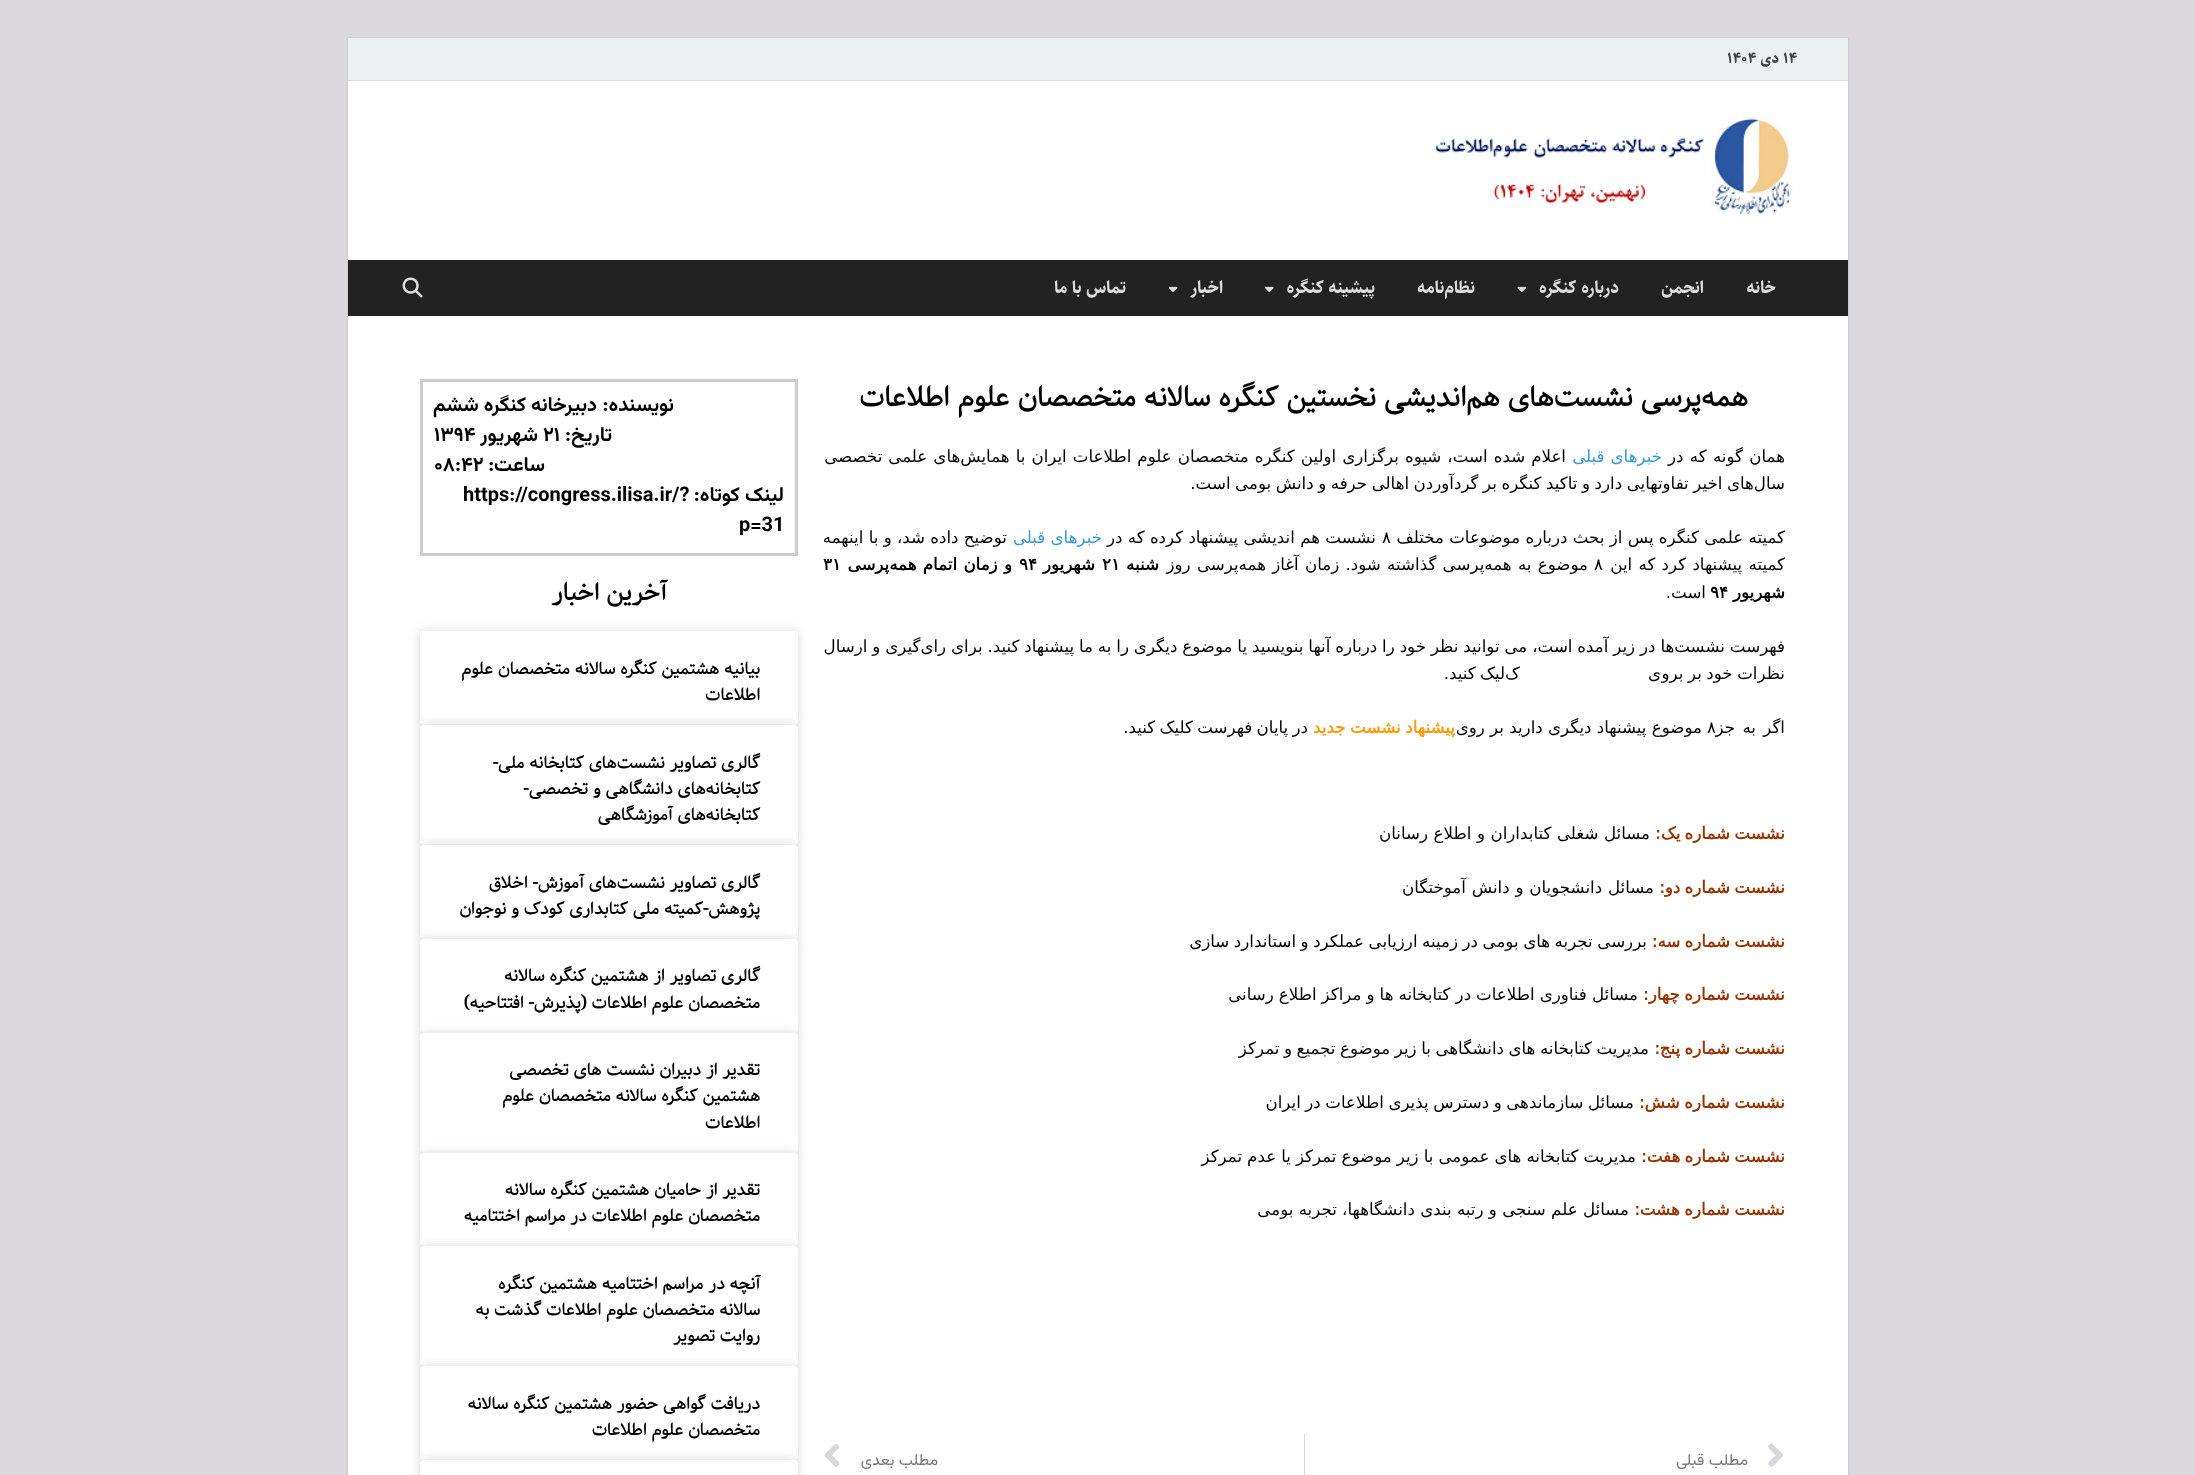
<svg xmlns="http://www.w3.org/2000/svg" width="2195" height="1475" viewBox="0 0 2195 1475">
  <rect width="100%" height="100%" fill="#dbd9dd"/>
  <path d="M348 38h1500v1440H348z" fill="#bbb" filter="blur(1px)"/>
  <path d="M348 81h1500v1394H348z" fill="#fff"/>
  <path d="M348 38h1500v42H348z" fill="#ecf0f1"/>
  <path d="M348 80h1500v1H348z" fill="#ddd"/>
  <image x="1435" y="116" width="360" height="98" href="img/1.png"/>
  <path d="M348 260h1500v56H348z" fill="#222"/>
  <image x="1517" y="286" width="10" height="6" href="img/2.png"/>
  <image x="1265" y="286" width="9" height="6" href="img/3.png"/>
  <image x="1168" y="286" width="10" height="6" href="img/4.png"/>
  <image x="402" y="277" width="21" height="21" href="img/5.png"/>
  <image x="1768" y="1443" width="16" height="24" href="img/6.png"/>
  <path d="M1304 1434h1v41H1304z" fill="#d5d8dc"/>
  <image x="824" y="1443" width="16" height="24" href="img/7.png"/>
  <path d="M421.5 380.5h375v174H421.5z" fill="none" stroke="#ccc" stroke-width="3"/>
  <rect x="420" y="631" width="378" height="94" rx="4" fill="#00000026" filter="blur(6px)"/>
  <rect x="420" y="631" width="378" height="94" rx="4" fill="#fff"/>
  <rect x="420" y="725" width="378" height="120" rx="4" fill="#00000026" filter="blur(6px)"/>
  <rect x="420" y="725" width="378" height="120" rx="4" fill="#fff"/>
  <rect x="420" y="845" width="378" height="94" rx="4" fill="#00000026" filter="blur(6px)"/>
  <rect x="420" y="845" width="378" height="94" rx="4" fill="#fff"/>
  <rect x="420" y="939" width="378" height="94" rx="4" fill="#00000026" filter="blur(6px)"/>
  <rect x="420" y="939" width="378" height="94" rx="4" fill="#fff"/>
  <rect x="420" y="1033" width="378" height="120" rx="4" fill="#00000026" filter="blur(6px)"/>
  <rect x="420" y="1033" width="378" height="120" rx="4" fill="#fff"/>
  <rect x="420" y="1153" width="378" height="93" rx="4" fill="#00000026" filter="blur(6px)"/>
  <rect x="420" y="1153" width="378" height="93" rx="4" fill="#fff"/>
  <rect x="420" y="1246" width="378" height="120" rx="4" fill="#00000026" filter="blur(6px)"/>
  <rect x="420" y="1246" width="378" height="120" rx="4" fill="#fff"/>
  <rect x="420" y="1366" width="378" height="94" rx="4" fill="#00000026" filter="blur(6px)"/>
  <rect x="420" y="1366" width="378" height="94" rx="4" fill="#fff"/>
  <rect x="420" y="1460" width="378" height="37" rx="4" fill="#00000026" filter="blur(6px)"/>
  <rect x="420" y="1460" width="378" height="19" rx="4" fill="#fff"/>
  <text x="1783" y="63" font-family="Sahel" font-size="15" font-weight="bold" fill="#404040">۱۴</text>
  <text x="1779" y="63" font-family="Sahel" font-size="15" font-weight="bold" direction="rtl" fill="#404040">دی</text>
  <text x="1727" y="63" font-family="Sahel" font-size="15" font-weight="bold" fill="#404040">۱۴۰۴</text>
  <g font-family="Sahel" font-size="17.5" font-weight="bold" direction="rtl" fill="#ddd">
    <text x="1776" y="293">خانه</text>
    <text x="1704" y="293">انجمن</text>
    <text x="1619" y="293">درباره کنگره</text>
    <text x="1475" y="293">نظام‌نامه</text>
    <text x="1375" y="293">پیشینه کنگره</text>
    <text x="1223" y="293">اخبار</text>
    <text x="1126" y="293">تماس با ما</text>
  </g>
  <text x="1748" y="406" font-family="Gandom" font-size="28.75" font-weight="bold" direction="rtl" fill="#000">همه‌پرسی نشست‌های هم‌اندیشی نخستین کنگره سالانه متخصصان علوم اطلاعات</text>
  <text x="1785" y="462" word-spacing="1" font-family="DejaVu Sans" font-size="16.67" direction="rtl" fill="#000">همان گونه که در</text>
  <text x="1662" y="462" word-spacing="0.75" font-family="DejaVu Sans" font-size="16.67" direction="rtl" fill="#3498db">خبرهای قبلی</text>
  <g font-family="DejaVu Sans" font-size="16.67" direction="rtl" fill="#000">
    <text x="1566" y="462" word-spacing="0.75">اعلام شده است، شیوه برگزاری اولین کنگره متخصصان علوم اطلاعات ایران با همایش‌های علمی تخصصی</text>
    <text x="1785" y="489" word-spacing="-0.75">سال‌های اخیر تفاوتهایی دارد و تاکید کنگره بر گردآوردن اهالی حرفه و دانش بومی است.</text>
    <text x="1785" y="543">کمیته علمی کنگره پس از بحث درباره موضوعات مختلف</text>
  </g>
  <text x="1382" y="543" font-family="DejaVu Sans" font-size="16.67" fill="#000">۸</text>
  <text x="1376" y="543" font-family="DejaVu Sans" font-size="16.67" direction="rtl" fill="#000">نشست هم اندیشی پیشنهاد کرده که در</text>
  <text x="1102" y="543" font-family="DejaVu Sans" font-size="16.67" direction="rtl" fill="#3498db">خبرهای قبلی</text>
  <g font-family="DejaVu Sans" font-size="16.67" direction="rtl" fill="#000">
    <text x="1007" y="543">توضیح داده شد، و با اینهمه</text>
    <text x="1785" y="570" word-spacing="1">کمیته پیشنهاد کرد که این</text>
  </g>
  <text x="1594" y="570" font-family="DejaVu Sans" font-size="16.67" fill="#000">۸</text>
  <text x="1588" y="570" word-spacing="1" font-family="DejaVu Sans" font-size="16.67" direction="rtl" fill="#000">موضوع به همه‌پرسی گذاشته شود. زمان آغاز همه‌پرسی روز</text>
  <text x="1159" y="570" font-family="DejaVu Sans" font-size="16.67" font-weight="bold" direction="rtl" fill="#000">شنبه</text>
  <text x="1102" y="570" font-family="DejaVu Sans" font-size="16.67" font-weight="bold" fill="#000">۲۱</text>
  <text x="1095" y="570" font-family="DejaVu Sans" font-size="16.67" font-weight="bold" direction="rtl" fill="#000">شهریور</text>
  <text x="1019" y="570" font-family="DejaVu Sans" font-size="16.67" font-weight="bold" fill="#000">۹۴</text>
  <text x="1012" y="570" word-spacing="1" font-family="DejaVu Sans" font-size="16.67" font-weight="bold" direction="rtl" fill="#000">و زمان اتمام همه‌پرسی</text>
  <text x="823" y="570" font-family="DejaVu Sans" font-size="16.67" font-weight="bold" fill="#000">۳۱</text>
  <text x="1785" y="598" font-family="DejaVu Sans" font-size="16.67" font-weight="bold" direction="rtl" fill="#000">شهریور</text>
  <text x="1710" y="598" font-family="DejaVu Sans" font-size="16.67" font-weight="bold" fill="#000">۹۴</text>
  <g font-family="DejaVu Sans" font-size="16.67" direction="rtl" fill="#000">
    <text x="1706" y="598">است.</text>
    <text x="1785" y="652" word-spacing="-0.4">فهرست نشست‌ها در زیر آمده است، می توانید نظر خود را درباره آنها بنویسید یا موضوع دیگری را به ما پیشنهاد کنید. برای رای‌گیری و ارسال</text>
    <text x="1785" y="679" word-spacing="-0.75">نظرات خود بر برو</text>
    <text x="1661" y="679">ی</text>
    <text x="1520" y="679">ک</text>
    <text x="1505" y="679" word-spacing="-1">لیک کنید.</text>
  </g>
  <text x="1707" y="733" font-family="DejaVu Sans" font-size="16.67" fill="#000">۸</text>
  <g font-family="DejaVu Sans" font-size="16.67" direction="rtl" fill="#000">
    <text x="1785" y="733" word-spacing="2">اگر به جز</text>
    <text x="1702" y="733">موضوع پیشنهاد دیگری دارید بر روی</text>
  </g>
  <text x="1455" y="733" word-spacing="-0.75" font-family="DejaVu Sans" font-size="16.67" font-weight="bold" direction="rtl" fill="#f90">پیشنهاد نشست جدید</text>
  <text x="1308" y="733" word-spacing="-1" font-family="DejaVu Sans" font-size="16.67" direction="rtl" fill="#000">در پایان فهرست کلیک کنید.</text>
  <text x="1785" y="839" word-spacing="-1" font-family="DejaVu Sans" font-size="16.67" font-weight="bold" direction="rtl" fill="#930">نشست شماره یک:</text>
  <text x="1650" y="839" word-spacing="0.25" font-family="DejaVu Sans" font-size="16.67" direction="rtl" fill="#000">مسائل شغلی کتابداران و اطلاع رسانان</text>
  <text x="1785" y="893" word-spacing="-1" font-family="DejaVu Sans" font-size="16.67" font-weight="bold" direction="rtl" fill="#930">نشست شماره دو:</text>
  <text x="1654" y="893" word-spacing="0.5" font-family="DejaVu Sans" font-size="16.67" direction="rtl" fill="#000">مسائل دانشجویان و دانش آموختگان</text>
  <text x="1785" y="947" word-spacing="-1" font-family="DejaVu Sans" font-size="16.67" font-weight="bold" direction="rtl" fill="#930">نشست شماره سه:</text>
  <text x="1647" y="947" word-spacing="-0.75" font-family="DejaVu Sans" font-size="16.67" direction="rtl" fill="#000">بررسی تجربه های بومی در زمینه ارزیابی عملکرد و استاندارد سازی</text>
  <text x="1785" y="1000" word-spacing="-0.75" font-family="DejaVu Sans" font-size="16.67" font-weight="bold" direction="rtl" fill="#930">نشست شماره چهار:</text>
  <text x="1638" y="1000" word-spacing="-0.25" font-family="DejaVu Sans" font-size="16.67" direction="rtl" fill="#000">مسائل فناوری اطلاعات در کتابخانه ها و مراکز اطلاع رسانی</text>
  <text x="1785" y="1054" word-spacing="-1" font-family="DejaVu Sans" font-size="16.67" font-weight="bold" direction="rtl" fill="#930">نشست شماره پنج:</text>
  <text x="1649" y="1054" word-spacing="-0.75" font-family="DejaVu Sans" font-size="16.67" direction="rtl" fill="#000">مدیریت کتابخانه های دانشگاهی با زیر موضوع تجمیع و تمرکز</text>
  <text x="1785" y="1108" word-spacing="-0.75" font-family="DejaVu Sans" font-size="16.67" font-weight="bold" direction="rtl" fill="#930">نشست شماره شش:</text>
  <text x="1634" y="1108" word-spacing="-0.75" font-family="DejaVu Sans" font-size="16.67" direction="rtl" fill="#000">مسائل سازماندهی و دسترس پذیری اطلاعات در ایران</text>
  <text x="1785" y="1162" word-spacing="-1" font-family="DejaVu Sans" font-size="16.67" font-weight="bold" direction="rtl" fill="#930">نشست شماره هفت:</text>
  <text x="1636" y="1162" word-spacing="-0.25" font-family="DejaVu Sans" font-size="16.67" direction="rtl" fill="#000">مدیریت کتابخانه های عمومی با زیر موضوع تمرکز یا عدم تمرکز</text>
  <text x="1785" y="1215" word-spacing="-0.75" font-family="DejaVu Sans" font-size="16.67" font-weight="bold" direction="rtl" fill="#930">نشست شماره هشت:</text>
  <text x="1629" y="1215" font-family="DejaVu Sans" font-size="16.67" direction="rtl" fill="#000">مسائل علم سنجی و رتبه بندی دانشگاهها، تجربه بومی</text>
  <g font-family="Vazirmatn" font-size="16" direction="rtl" fill="#7a7a7a">
    <text x="1748" y="1465">مطلب قبلی</text>
    <text x="938" y="1465">مطلب بعدی</text>
  </g>
  <g font-family="Vazirmatn" font-size="20" font-weight="bold" direction="rtl" fill="#000">
    <text x="674" y="411">نویسنده:</text>
    <text x="597" y="411">دبیرخانه کنگره ششم</text>
    <text x="612" y="441">تاریخ:</text>
  </g>
  <text x="543" y="441" font-family="Vazirmatn" font-size="20" font-weight="bold" fill="#000">۲۱</text>
  <text x="538" y="441" font-family="Vazirmatn" font-size="20" font-weight="bold" direction="rtl" fill="#000">شهریور</text>
  <text x="434" y="441" font-family="Vazirmatn" font-size="20" font-weight="bold" fill="#000">۱۳۹۴</text>
  <text x="545" y="471" font-family="Vazirmatn" font-size="20" font-weight="bold" direction="rtl" fill="#000">ساعت:</text>
  <text x="434" y="471" font-family="Vazirmatn" font-size="20" font-weight="bold" fill="#000">۰۸:۴۲</text>
  <text x="784" y="501" font-family="Vazirmatn" font-size="20" font-weight="bold" direction="rtl" fill="#000">لینک کوتاه:</text>
  <g font-family="Vazirmatn" font-size="20" font-weight="bold" fill="#000">
    <text x="463" y="501">https://congress.ilisa.ir/?</text>
    <text x="739" y="531">p=31</text>
  </g>
  <text x="667" y="600" font-family="Gandom" font-size="25" font-weight="bold" direction="rtl" fill="#000">آخرین اخبار</text>
  <g font-family="Gandom" font-size="17.5" font-weight="bold" direction="rtl" fill="#000">
    <text x="760" y="674">بیانیه هشتمین کنگره سالانه متخصصان علوم</text>
    <text x="760" y="700">اطلاعات</text>
    <text x="760" y="768">گالری تصاویر نشست‌های کتابخانه ملی-</text>
    <text x="760" y="794">کتابخانه‌های دانشگاهی و تخصصی-</text>
    <text x="760" y="820">کتابخانه‌های آموزشگاهی</text>
    <text x="760" y="888">گالری تصاویر نشست‌های آموزش- اخلاق</text>
    <text x="760" y="914">پژوهش-کمیته ملی کتابداری کودک و نوجوان</text>
    <text x="760" y="981">گالری تصاویر از هشتمین کنگره سالانه</text>
    <text x="760" y="1008">متخصصان علوم اطلاعات (پذیرش- افتتاحیه)</text>
    <text x="760" y="1075">تقدیر از دبیران نشست های تخصصی</text>
    <text x="760" y="1101">هشتمین کنگره سالانه متخصصان علوم</text>
    <text x="760" y="1128">اطلاعات</text>
    <text x="760" y="1195">تقدیر از حامیان هشتمین کنگره سالانه</text>
    <text x="760" y="1221">متخصصان علوم اطلاعات در مراسم اختتامیه</text>
    <text x="760" y="1289">آنچه در مراسم اختتامیه هشتمین کنگره</text>
    <text x="760" y="1315">سالانه متخصصان علوم اطلاعات گذشت به</text>
    <text x="760" y="1341">روایت تصویر</text>
    <text x="760" y="1409">دریافت گواهی حضور هشتمین کنگره سالانه</text>
    <text x="760" y="1435">متخصصان علوم اطلاعات</text>
  </g>
</svg>
